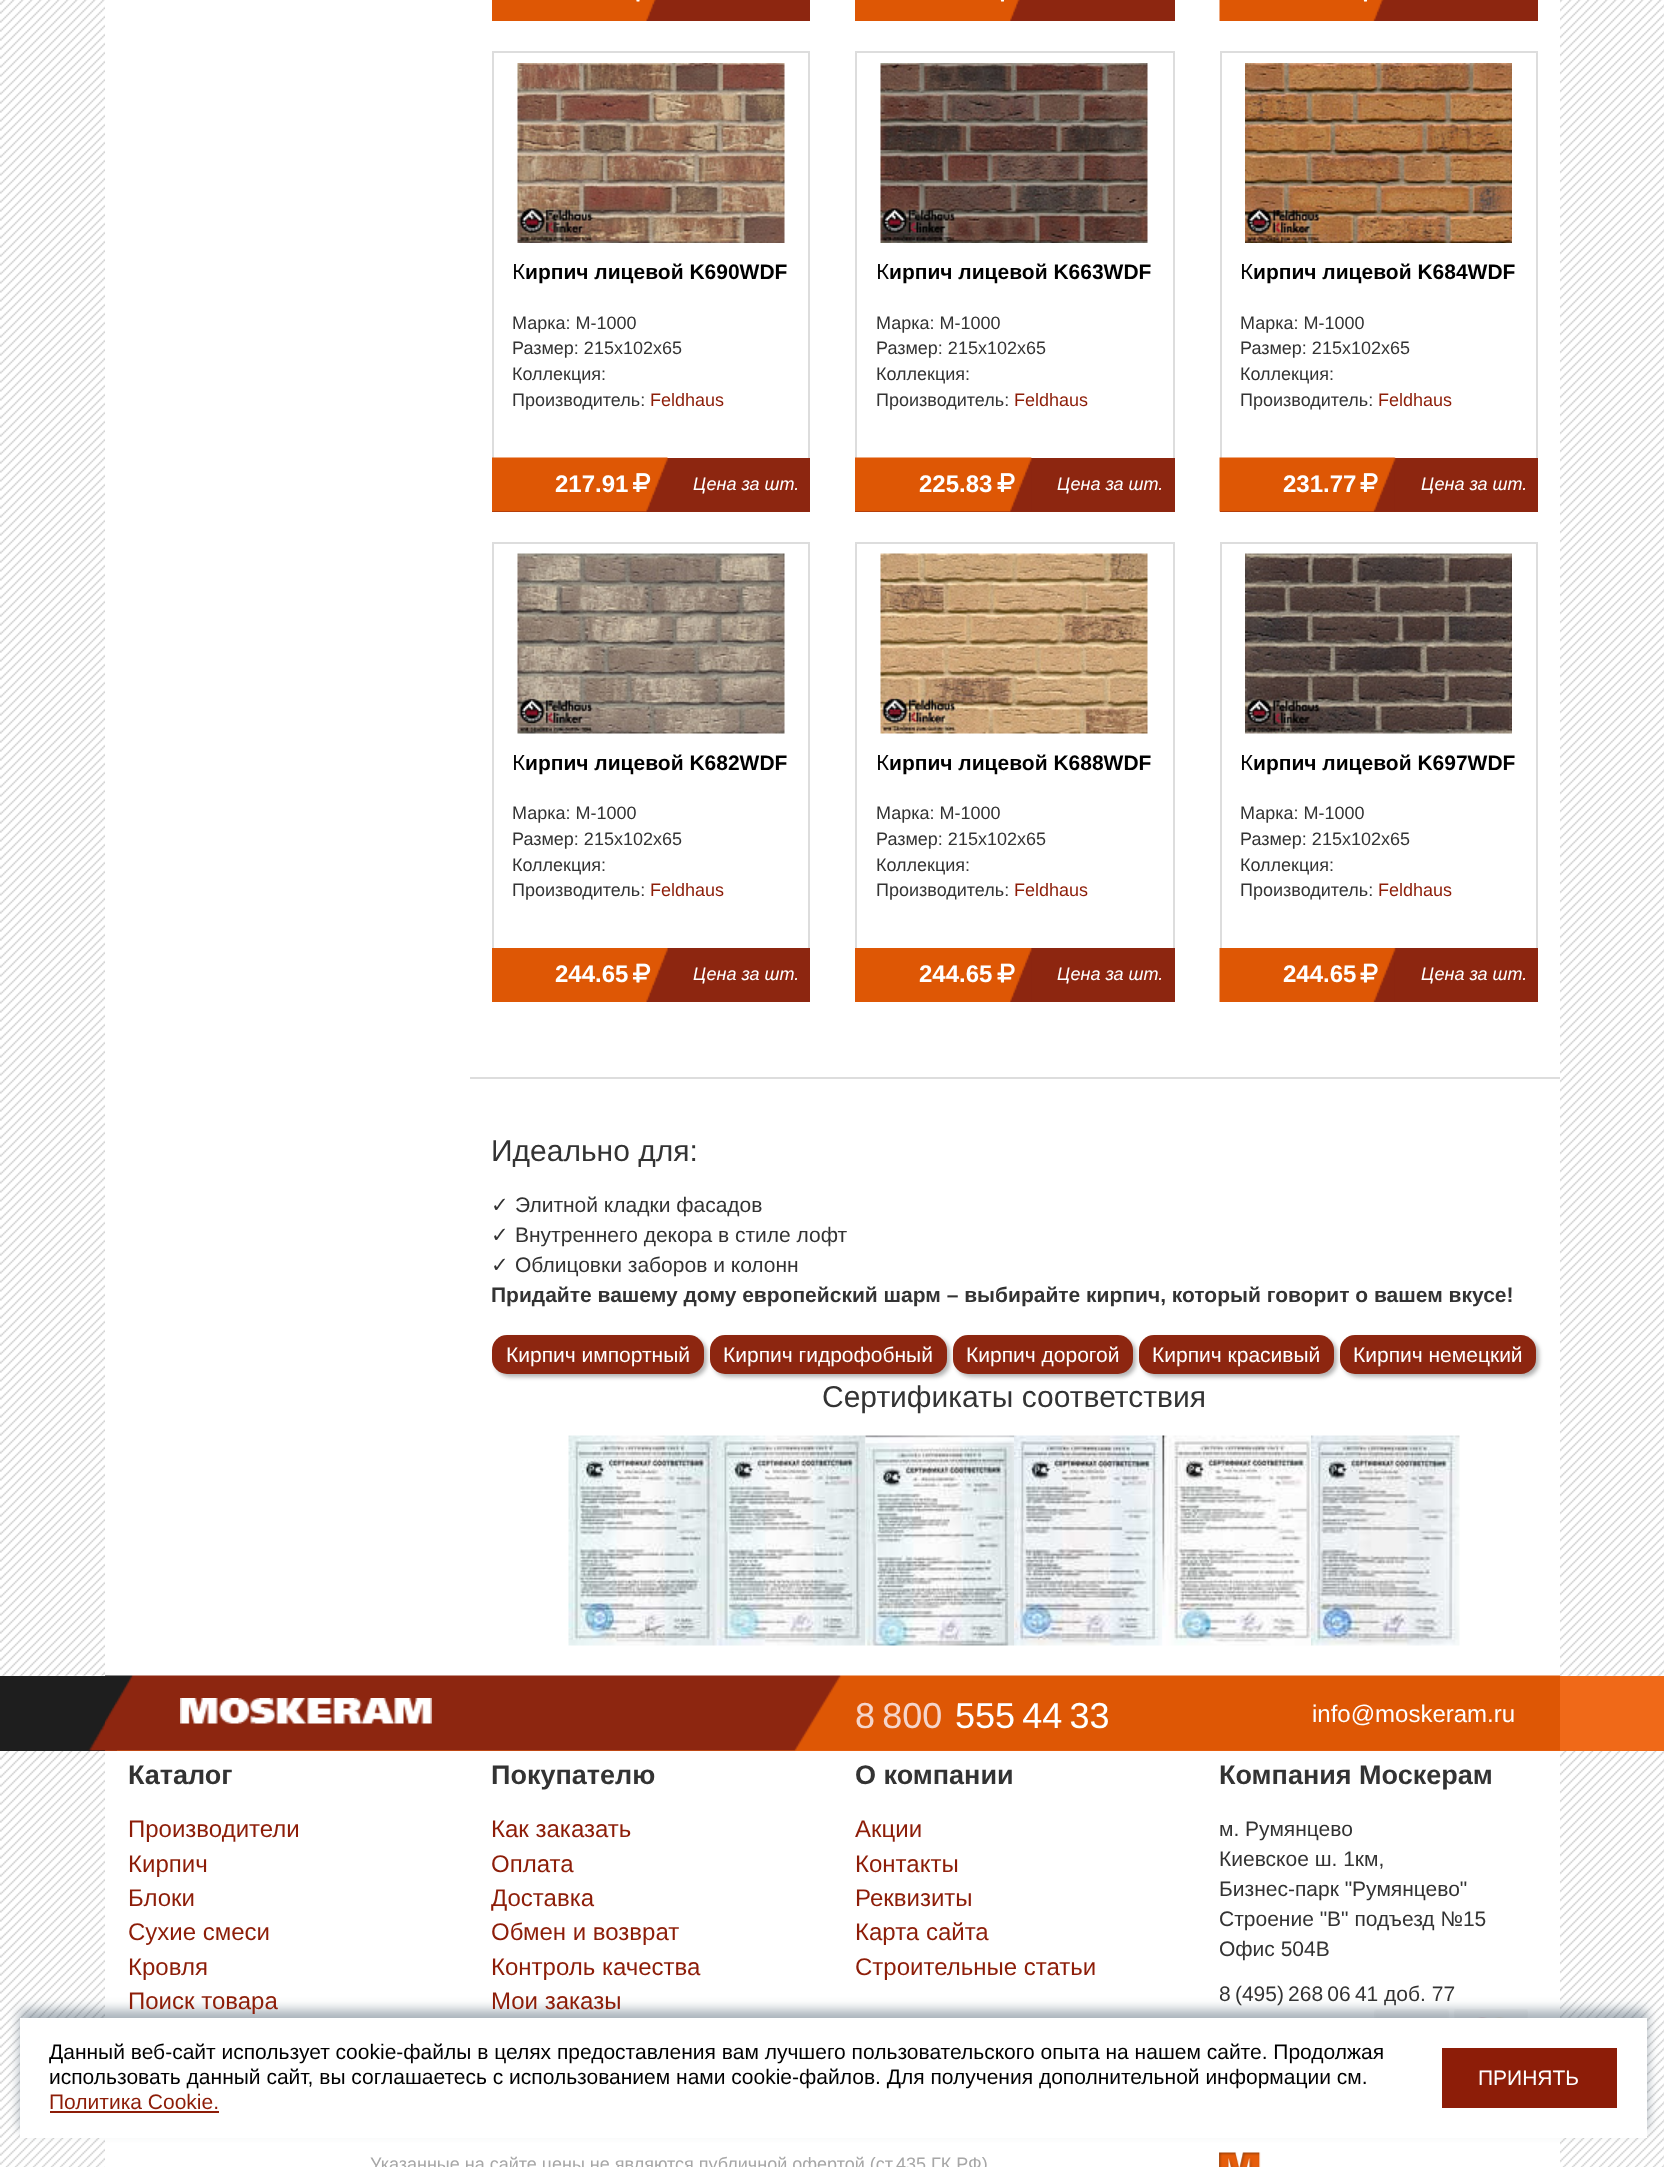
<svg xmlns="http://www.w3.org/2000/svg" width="1664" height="2167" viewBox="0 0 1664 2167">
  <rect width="100%" height="100%" fill="#fff"/>
  <image x="0" y="0" width="1664" height="2167" href="img/1.png"/>
  <image x="0" y="0" width="1664" height="2167" href="img/2.png"/>
  <path d="M105 0h1455v1676H105z" fill="#fff"/>
  <path d="M656 0h154v21H656z" fill="#8d2610"/>
  <image x="492" y="0" width="164" height="21" href="img/3.png"/>
  <image x="636" y="0" width="4" height="2" href="img/4.png"/>
  <path d="M1020 0h155v21H1020z" fill="#8d2610"/>
  <image x="855" y="0" width="165" height="21" href="img/5.png"/>
  <image x="1000" y="0" width="5" height="2" href="img/6.png"/>
  <path d="M1384 0h154v21H1384z" fill="#8d2610"/>
  <image x="1219" y="0" width="165" height="21" href="img/7.png"/>
  <image x="1363" y="0" width="5" height="2" href="img/6.png"/>
  <path d="M493 52h316v459H493z" fill="none" stroke="#ddd" stroke-width="2"/>
  <image x="517" y="63" width="268" height="180" href="img/8.png"/>
  <path d="M492 458h318v54H492z" fill="#8d2610"/>
  <image x="492" y="457" width="176" height="55" href="img/9.png"/>
  <image x="633" y="473" width="18" height="19" href="img/10.png"/>
  <path d="M856 52h318v459H856z" fill="none" stroke="#ddd" stroke-width="2"/>
  <image x="880" y="63" width="268" height="180" href="img/11.png"/>
  <path d="M855 458h320v54H855z" fill="#8d2610"/>
  <image x="855" y="457" width="177" height="55" href="img/12.png"/>
  <image x="997" y="473" width="18" height="19" href="img/13.png"/>
  <path d="M1221 52h316v459H1221z" fill="none" stroke="#ddd" stroke-width="2"/>
  <image x="1245" y="63" width="267" height="180" href="img/14.png"/>
  <path d="M1220 458h318v54H1220z" fill="#8d2610"/>
  <image x="1219" y="457" width="177" height="55" href="img/15.png"/>
  <image x="1360" y="473" width="18" height="19" href="img/13.png"/>
  <path d="M493 543h316v458H493z" fill="none" stroke="#ddd" stroke-width="2"/>
  <image x="517" y="553" width="268" height="181" href="img/16.png"/>
  <path d="M667 948h143v54H667z" fill="#8d2610"/>
  <image x="492" y="948" width="176" height="54" href="img/17.png"/>
  <image x="633" y="963" width="18" height="20" href="img/18.png"/>
  <path d="M856 543h318v458H856z" fill="none" stroke="#ddd" stroke-width="2"/>
  <image x="880" y="553" width="268" height="181" href="img/19.png"/>
  <path d="M1031 948h144v54H1031z" fill="#8d2610"/>
  <image x="855" y="948" width="177" height="54" href="img/20.png"/>
  <image x="997" y="963" width="18" height="20" href="img/21.png"/>
  <path d="M1221 543h316v458H1221z" fill="none" stroke="#ddd" stroke-width="2"/>
  <image x="1245" y="553" width="267" height="181" href="img/22.png"/>
  <path d="M1394 948h144v54H1394z" fill="#8d2610"/>
  <image x="1219" y="948" width="177" height="54" href="img/23.png"/>
  <image x="1360" y="963" width="18" height="20" href="img/21.png"/>
  <path d="M470 1077h1090v2H470z" fill="#ddd"/>
  <rect x="495" y="1338" width="212" height="39" rx="15" fill="#0000004d" filter="blur(2px)"/>
  <rect x="492" y="1335" width="212" height="39" rx="15" fill="#8d2610"/>
  <rect x="713" y="1338" width="237" height="39" rx="15" fill="#0000004d" filter="blur(2px)"/>
  <rect x="710" y="1335" width="237" height="39" rx="15" fill="#8d2610"/>
  <rect x="956" y="1338" width="180" height="39" rx="15" fill="#0000004d" filter="blur(2px)"/>
  <rect x="953" y="1335" width="180" height="39" rx="15" fill="#8d2610"/>
  <rect x="1142" y="1338" width="195" height="39" rx="15" fill="#0000004d" filter="blur(2px)"/>
  <rect x="1139" y="1335" width="195" height="39" rx="15" fill="#8d2610"/>
  <rect x="1343" y="1338" width="196" height="39" rx="15" fill="#0000004d" filter="blur(2px)"/>
  <rect x="1340" y="1335" width="196" height="39" rx="15" fill="#8d2610"/>
  <image x="568" y="1435" width="149" height="211" href="img/24.png"/>
  <image x="717" y="1435" width="149" height="211" href="img/25.png"/>
  <image x="865" y="1435" width="149" height="211" href="img/26.png"/>
  <image x="1014" y="1435" width="149" height="211" href="img/27.png"/>
  <image x="1162" y="1435" width="149" height="211" href="img/28.png"/>
  <image x="1311" y="1435" width="149" height="211" href="img/29.png"/>
  <path d="M1560 1676h104v75H1560z" fill="#f06918"/>
  <path d="M0 1676h105v75H0z" fill="#1e1e1e"/>
  <path d="M105 1750h1455v1H105z" fill="#f06918"/>
  <image x="105" y="1675" width="1455" height="76" href="img/30.png"/>
  <image x="88" y="1702" width="29" height="49" href="img/31.png"/>
  <image x="180" y="1698" width="252" height="26" href="img/32.png"/>
  <path d="M105 1751h1455v416H105z" fill="#fff"/>
  <image x="1374" y="2009" width="75" height="9" href="img/33.png"/>
  <image x="1454" y="2009" width="74" height="9" href="img/34.png"/>
  <image x="1219" y="2152" width="42" height="15" href="img/35.png"/>
  <path d="M20 2010h1627v120H20z" fill="#223c5066" filter="blur(6px)"/>
  <path d="M20 2018h1627v120H20z" fill="#fff"/>
  <path d="M50 2111h169v2H50z" fill="#8d1d08"/>
  <path d="M1442 2048h175v60H1442z" fill="#8d1d08"/>
  <text x="512" y="279" font-family="Noto Sans" font-size="21" fill="#000">К</text>
  <text x="525" y="279" font-family="Liberation Sans" font-size="21" font-weight="bold" fill="#000">ирпич лицевой K690WDF</text>
  <g font-family="Liberation Sans" font-size="18" fill="#333">
    <text x="512" y="329">Марка: М-1000</text>
    <text x="512" y="354">Размер: 215x102x65</text>
    <text x="512" y="380">Коллекция:</text>
    <text x="512" y="406">Производитель:</text>
  </g>
  <text x="650" y="406" font-family="Liberation Sans" font-size="18" fill="#8d1d08">Feldhaus</text>
  <text x="555" y="492" font-family="Liberation Sans" font-size="24" font-weight="bold" fill="#fff">217.91</text>
  <text x="693" y="490" font-family="Liberation Sans" font-size="18" font-style="italic" fill="#fff">Цена за шт.</text>
  <text x="876" y="279" font-family="Noto Sans" font-size="21" fill="#000">К</text>
  <text x="889" y="279" font-family="Liberation Sans" font-size="21" font-weight="bold" fill="#000">ирпич лицевой K663WDF</text>
  <g font-family="Liberation Sans" font-size="18" fill="#333">
    <text x="876" y="329">Марка: М-1000</text>
    <text x="876" y="354">Размер: 215x102x65</text>
    <text x="876" y="380">Коллекция:</text>
    <text x="876" y="406">Производитель:</text>
  </g>
  <text x="1014" y="406" font-family="Liberation Sans" font-size="18" fill="#8d1d08">Feldhaus</text>
  <text x="919" y="492" font-family="Liberation Sans" font-size="24" font-weight="bold" fill="#fff">225.83</text>
  <text x="1057" y="490" font-family="Liberation Sans" font-size="18" font-style="italic" fill="#fff">Цена за шт.</text>
  <text x="1240" y="279" font-family="Noto Sans" font-size="21" fill="#000">К</text>
  <text x="1253" y="279" font-family="Liberation Sans" font-size="21" font-weight="bold" fill="#000">ирпич лицевой K684WDF</text>
  <g font-family="Liberation Sans" font-size="18" fill="#333">
    <text x="1240" y="329">Марка: М-1000</text>
    <text x="1240" y="354">Размер: 215x102x65</text>
    <text x="1240" y="380">Коллекция:</text>
    <text x="1240" y="406">Производитель:</text>
  </g>
  <text x="1378" y="406" font-family="Liberation Sans" font-size="18" fill="#8d1d08">Feldhaus</text>
  <text x="1283" y="492" font-family="Liberation Sans" font-size="24" font-weight="bold" fill="#fff">231.77</text>
  <text x="1421" y="490" font-family="Liberation Sans" font-size="18" font-style="italic" fill="#fff">Цена за шт.</text>
  <text x="512" y="770" font-family="Noto Sans" font-size="21" fill="#000">К</text>
  <text x="525" y="770" font-family="Liberation Sans" font-size="21" font-weight="bold" fill="#000">ирпич лицевой K682WDF</text>
  <g font-family="Liberation Sans" font-size="18" fill="#333">
    <text x="512" y="819">Марка: М-1000</text>
    <text x="512" y="845">Размер: 215x102x65</text>
    <text x="512" y="871">Коллекция:</text>
    <text x="512" y="896">Производитель:</text>
  </g>
  <text x="650" y="896" font-family="Liberation Sans" font-size="18" fill="#8d1d08">Feldhaus</text>
  <text x="555" y="982" font-family="Liberation Sans" font-size="24" font-weight="bold" fill="#fff">244.65</text>
  <text x="693" y="980" font-family="Liberation Sans" font-size="18" font-style="italic" fill="#fff">Цена за шт.</text>
  <text x="876" y="770" font-family="Noto Sans" font-size="21" fill="#000">К</text>
  <text x="889" y="770" font-family="Liberation Sans" font-size="21" font-weight="bold" fill="#000">ирпич лицевой K688WDF</text>
  <g font-family="Liberation Sans" font-size="18" fill="#333">
    <text x="876" y="819">Марка: М-1000</text>
    <text x="876" y="845">Размер: 215x102x65</text>
    <text x="876" y="871">Коллекция:</text>
    <text x="876" y="896">Производитель:</text>
  </g>
  <text x="1014" y="896" font-family="Liberation Sans" font-size="18" fill="#8d1d08">Feldhaus</text>
  <text x="919" y="982" font-family="Liberation Sans" font-size="24" font-weight="bold" fill="#fff">244.65</text>
  <text x="1057" y="980" font-family="Liberation Sans" font-size="18" font-style="italic" fill="#fff">Цена за шт.</text>
  <text x="1240" y="770" font-family="Noto Sans" font-size="21" fill="#000">К</text>
  <text x="1253" y="770" font-family="Liberation Sans" font-size="21" font-weight="bold" fill="#000">ирпич лицевой K697WDF</text>
  <g font-family="Liberation Sans" font-size="18" fill="#333">
    <text x="1240" y="819">Марка: М-1000</text>
    <text x="1240" y="845">Размер: 215x102x65</text>
    <text x="1240" y="871">Коллекция:</text>
    <text x="1240" y="896">Производитель:</text>
  </g>
  <text x="1378" y="896" font-family="Liberation Sans" font-size="18" fill="#8d1d08">Feldhaus</text>
  <text x="1283" y="982" font-family="Liberation Sans" font-size="24" font-weight="bold" fill="#fff">244.65</text>
  <text x="1421" y="980" font-family="Liberation Sans" font-size="18" font-style="italic" fill="#fff">Цена за шт.</text>
  <text x="491" y="1161" font-family="Liberation Sans" font-size="30" fill="#333">Идеально для:</text>
  <text x="491" y="1212" font-family="DejaVu Sans" font-size="21" fill="#333">✓</text>
  <text x="515" y="1212" font-family="Liberation Sans" font-size="21" fill="#333">Элитной кладки фасадов</text>
  <text x="491" y="1242" font-family="DejaVu Sans" font-size="21" fill="#333">✓</text>
  <text x="515" y="1242" font-family="Liberation Sans" font-size="21" fill="#333">Внутреннего декора в стиле лофт</text>
  <text x="491" y="1272" font-family="DejaVu Sans" font-size="21" fill="#333">✓</text>
  <text x="515" y="1272" font-family="Liberation Sans" font-size="21" fill="#333">Облицовки заборов и колонн</text>
  <text x="491" y="1302" font-family="Liberation Sans" font-size="21" font-weight="bold" fill="#333">Придайте вашему дому европейский шарм – выбирайте кирпич, который говорит о вашем вкусе!</text>
  <g font-family="Liberation Sans" font-size="21" fill="#fff">
    <text x="506" y="1362">Кирпич импортный</text>
    <text x="723" y="1362">Кирпич гидрофобный</text>
    <text x="966" y="1362">Кирпич дорогой</text>
    <text x="1152" y="1362">Кирпич красивый</text>
    <text x="1353" y="1362">Кирпич немецкий</text>
  </g>
  <text x="822" y="1407" font-family="Liberation Sans" font-size="30" fill="#333">Сертификаты соответствия</text>
  <text x="855" y="1728" font-family="Liberation Sans" font-size="36" fill="#f5d5cb">8 800</text>
  <text x="955" y="1728" font-family="Liberation Sans" font-size="36" fill="#fff">555 44 33</text>
  <text x="1312" y="1722" font-family="Liberation Sans" font-size="24" fill="#fff">info@moskeram.ru</text>
  <text x="128" y="1784" font-family="Liberation Sans" font-size="27" font-weight="bold" fill="#333">Каталог</text>
  <g font-family="Liberation Sans" font-size="24" fill="#8d1d08">
    <text x="128" y="1837">Производители</text>
    <text x="128" y="1872">Кирпич</text>
    <text x="128" y="1906">Блоки</text>
    <text x="128" y="1940">Сухие смеси</text>
    <text x="128" y="1975">Кровля</text>
    <text x="128" y="2009">Поиск товара</text>
  </g>
  <text x="491" y="1784" font-family="Liberation Sans" font-size="27" font-weight="bold" fill="#333">Покупателю</text>
  <g font-family="Liberation Sans" font-size="24" fill="#8d1d08">
    <text x="491" y="1837">Как заказать</text>
    <text x="491" y="1872">Оплата</text>
    <text x="491" y="1906">Доставка</text>
    <text x="491" y="1940">Обмен и возврат</text>
    <text x="491" y="1975">Контроль качества</text>
    <text x="491" y="2009">Мои заказы</text>
  </g>
  <text x="855" y="1784" font-family="Liberation Sans" font-size="27" font-weight="bold" fill="#333">О компании</text>
  <g font-family="Liberation Sans" font-size="24" fill="#8d1d08">
    <text x="855" y="1837">Акции</text>
    <text x="855" y="1872">Контакты</text>
    <text x="855" y="1906">Реквизиты</text>
    <text x="855" y="1940">Карта сайта</text>
    <text x="855" y="1975">Строительные статьи</text>
  </g>
  <text x="1219" y="1784" font-family="Liberation Sans" font-size="27" font-weight="bold" fill="#333">Компания Москерам</text>
  <g font-family="Liberation Sans" font-size="21" fill="#333">
    <text x="1219" y="1836">м. Румянцево</text>
    <text x="1219" y="1866">Киевское ш. 1км,</text>
    <text x="1219" y="1896">Бизнес-парк "Румянцево"</text>
    <text x="1219" y="1926">Строение "В" подъезд №15</text>
    <text x="1219" y="1956">Офис 504В</text>
    <text x="1219" y="2001">8 (495) 268 06 41 доб. 77</text>
  </g>
  <text x="370" y="2170" font-family="Liberation Sans" font-size="18" fill="#a7a7a7">Указанные на сайте цены не являются публичной офертой (ст.435 ГК РФ)</text>
  <g font-family="Liberation Sans" font-size="21" fill="#000">
    <text x="49" y="2059">Данный веб-сайт использует cookie-файлы в целях предоставления вам лучшего пользовательского опыта на нашем сайте. Продолжая</text>
    <text x="49" y="2084">использовать данный сайт, вы соглашаетесь с использованием нами cookie-файлов. Для получения дополнительной информации см.</text>
  </g>
  <text x="49" y="2109" font-family="Liberation Sans" font-size="21" fill="#8d1d08">Политика Cookie.</text>
  <text x="1478" y="2085" font-family="Liberation Sans" font-size="21" fill="#fff">ПРИНЯТЬ</text>
</svg>
